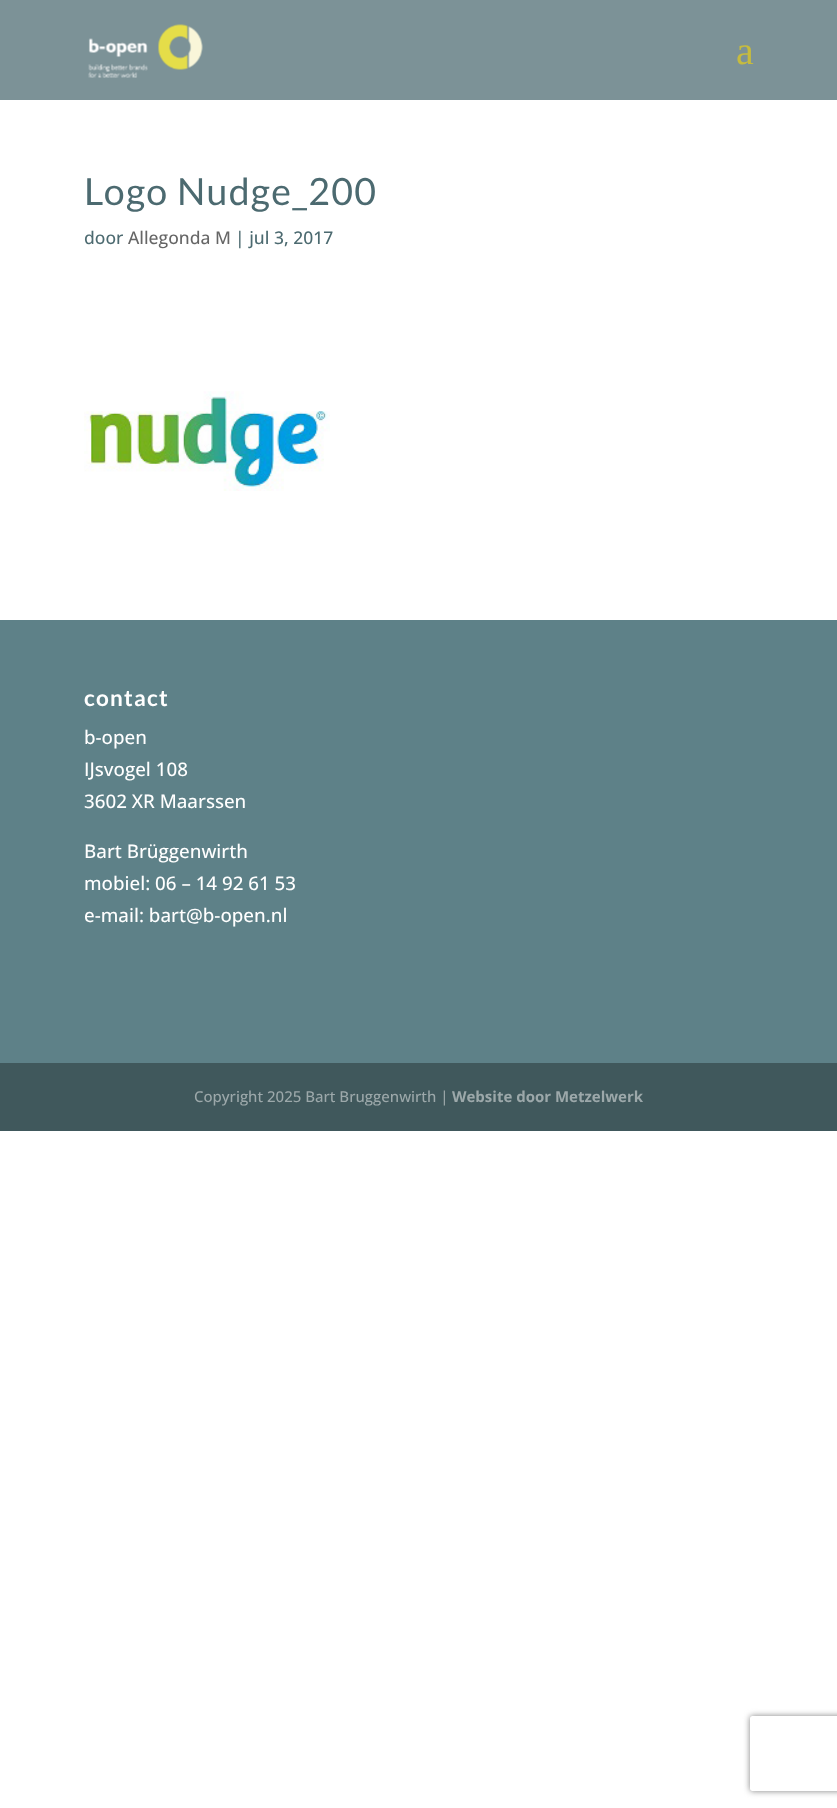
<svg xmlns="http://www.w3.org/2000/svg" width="837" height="1808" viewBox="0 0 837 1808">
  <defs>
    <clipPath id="clip1"><path d="M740 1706H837V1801H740ZM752.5 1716H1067.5C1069 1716 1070 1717 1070 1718.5V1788.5C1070 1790 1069 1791 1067.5 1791H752.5C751 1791 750 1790 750 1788.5V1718.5C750 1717 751 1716 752.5 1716Z" clip-rule="evenodd"/></clipPath>
  </defs>
  <rect width="100%" height="100%" fill="#fff"/>
  <path d="M0 0h837v100H0z" fill="#7c9297"/>
  <image x="88" y="24" width="115" height="54" href="img/1.png"/>
  <image x="84" y="391" width="246" height="100" href="img/2.png"/>
  <path d="M0 620h837v443H0z" fill="#5e8188"/>
  <path d="M0 1063h837v68H0z" fill="#40585c"/>
  <g clip-path="url(#clip1)">
    <rect x="750" y="1716" width="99" height="75" rx="2.5" fill="#808080" filter="blur(3px)"/>
  </g>
  <text x="736" y="64" font-family="Liberation Serif" font-size="40" fill="#c6bb3f">a</text>
  <text x="84" y="205" font-family="Lato" font-size="37.5" letter-spacing="1.25" fill="#4c6a70">Logo Nudge_200</text>
  <text x="84" y="244" font-family="Open Sans" font-size="17.5" font-weight="500" fill="#4c6a70">door</text>
  <text x="128" y="244" font-family="Open Sans" font-size="17.5" font-weight="500" fill="#666">Allegonda M</text>
  <text x="235" y="244" font-family="Open Sans" font-size="17.5" font-weight="500" fill="#4c6a70">| jul 3, 2017</text>
  <text x="84" y="706" font-family="Lato" font-size="22.5" font-weight="bold" letter-spacing="1.25" fill="#fff">contact</text>
  <g font-family="Open Sans" font-size="18.75" font-weight="500" fill="#fff">
    <text x="84" y="744">b-open</text>
    <text x="84" y="776">IJsvogel 108</text>
    <text x="84" y="808">3602 XR Maarssen</text>
    <text x="84" y="858">Bart Brüggenwirth</text>
    <text x="84" y="890">mobiel: 06 – 14 92 61 53</text>
    <text x="84" y="922">e-mail: bart@b-open.nl</text>
  </g>
  <text x="194" y="1102" font-family="Open Sans" font-size="15" font-weight="500" fill="#9ca8aa">Copyright 2025 Bart Bruggenwirth |</text>
  <text x="452" y="1102" font-family="Open Sans" font-size="15" font-weight="bold" fill="#9ca8aa">Website door Metzelwerk</text>
</svg>
